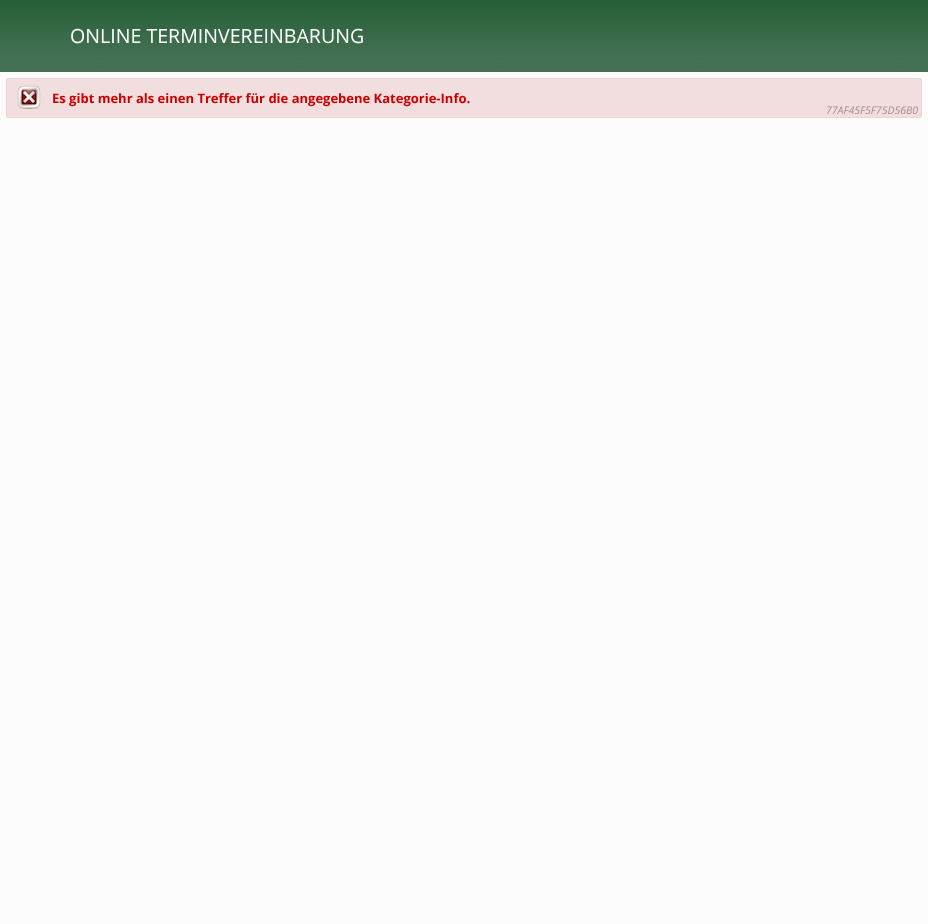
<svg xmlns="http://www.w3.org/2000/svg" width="928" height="924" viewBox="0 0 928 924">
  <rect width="100%" height="100%" fill="#fcfcfc"/>
  <image x="0" y="0" width="928" height="72" href="img/1.png"/>
  <rect x="6.5" y="78.5" width="915" height="39" rx="1.5" fill="#f2dede" stroke="#eed3d7"/>
  <image x="17" y="85" width="24" height="24" href="img/2.png"/>
  <text x="70" y="43" font-family="Open Sans" font-size="19.6" fill="#fff">ONLINE TERMINVEREINBARUNG</text>
  <text x="52" y="103" font-family="Open Sans" font-size="13" font-weight="bold" fill="#cb0000">Es gibt mehr als einen Treffer für die angegebene Kategorie-Info.</text>
  <text x="826" y="114" font-family="Open Sans" font-size="10.5" font-style="italic" fill="#9d9090">77AF45F5F75D56B0</text>
</svg>
